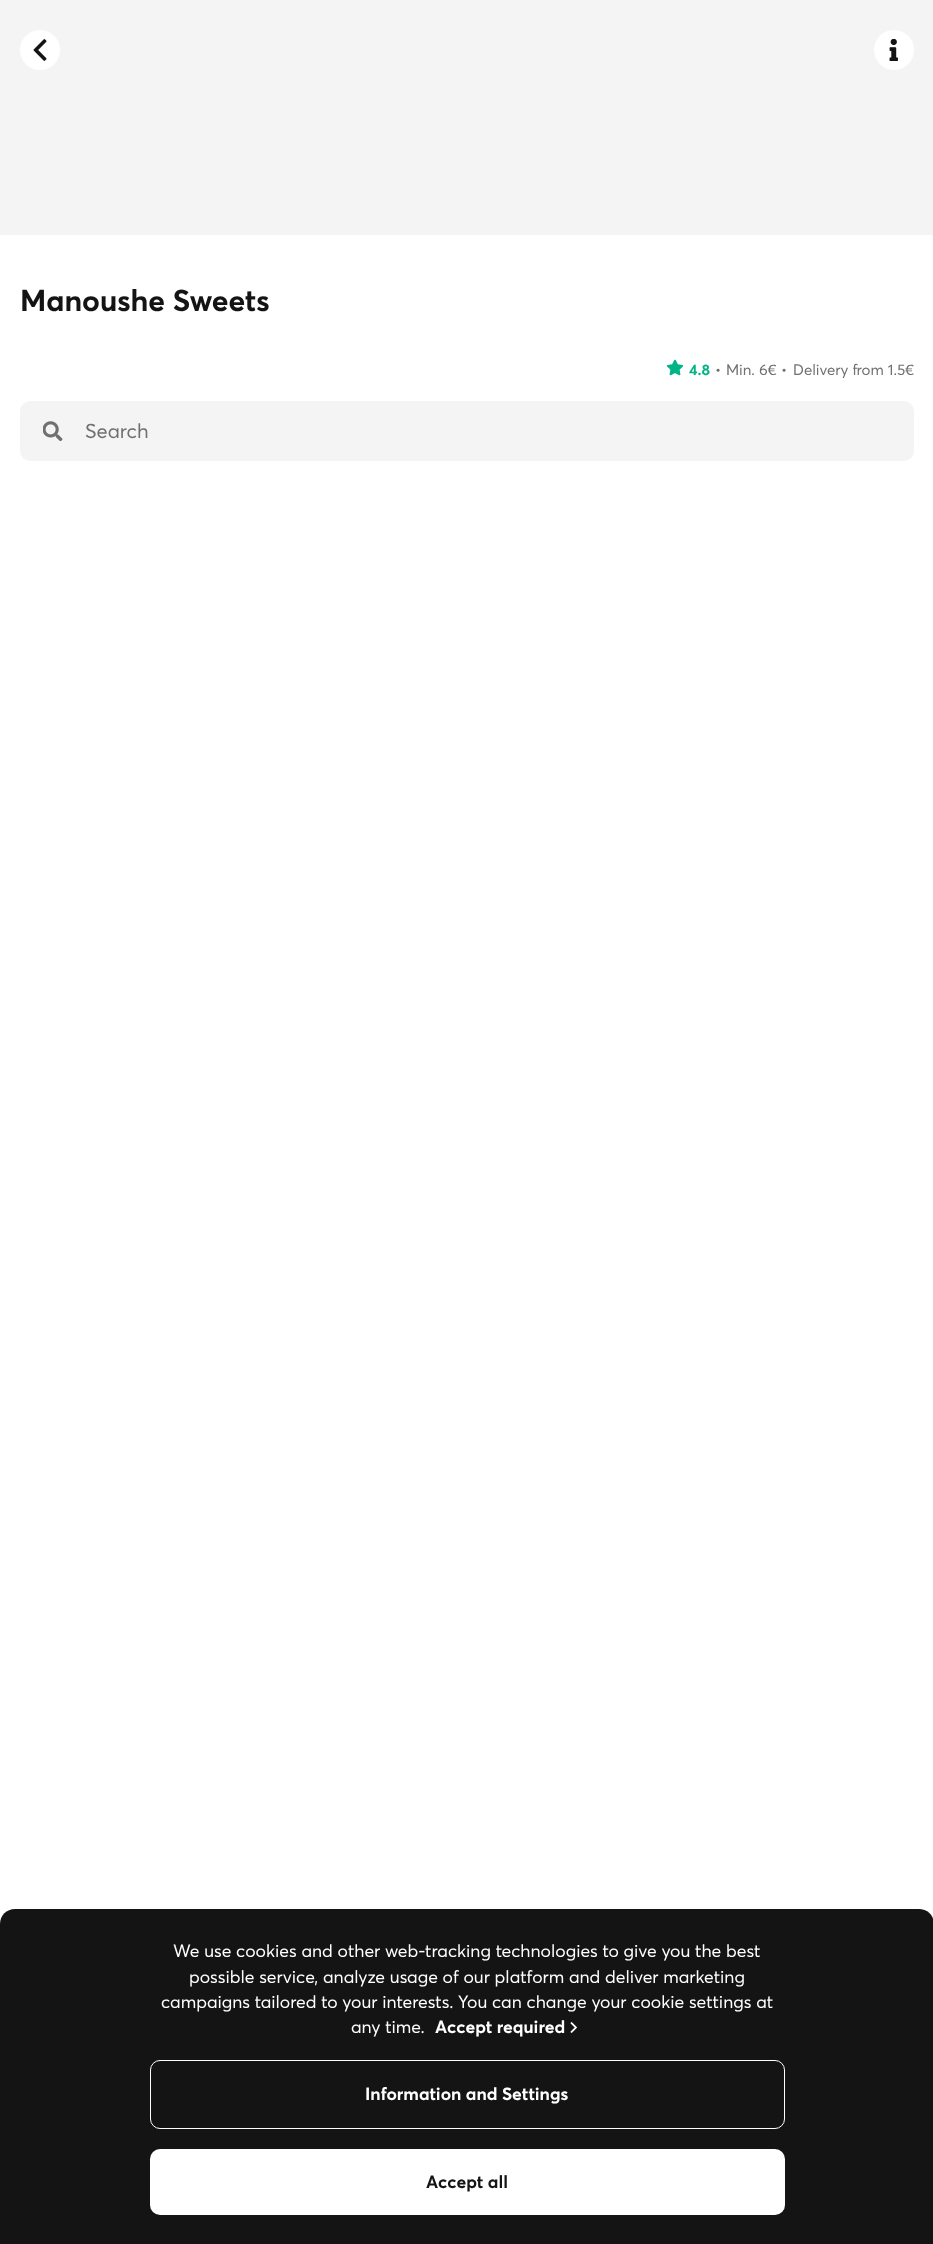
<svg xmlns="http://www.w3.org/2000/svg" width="933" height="2244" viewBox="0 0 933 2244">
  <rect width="100%" height="100%" fill="#f4f4f4"/>
  <circle cx="40" cy="50" r="20" fill="#fff"/>
  <image x="33" y="39" width="14" height="22" href="img/1.png"/>
  <circle cx="894" cy="50" r="20" fill="#fff"/>
  <image x="889" y="39" width="9" height="22" href="img/2.png"/>
  <path d="M0 235h933v1689H0z" fill="#fff"/>
  <image x="666" y="359" width="18" height="17" href="img/3.png"/>
  <rect x="20" y="401" width="894" height="60" rx="10" fill="#f4f4f4"/>
  <image x="43" y="421" width="20" height="20" href="img/4.png"/>
  <path d="M15 1909H919C927.5 1909 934 1915.5 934 1924V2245H0V1924C0 1915.5 6.5 1909 15 1909Z" fill="#141414"/>
  <image x="570" y="2022" width="7" height="11" href="img/5.png"/>
  <rect x="150.5" y="2060.5" width="634" height="68" rx="9.5" fill="none" stroke="#fff"/>
  <rect x="150" y="2149" width="635" height="66" rx="10" fill="#fff"/>
  <text x="20" y="311" font-family="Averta" font-size="30" font-weight="bold" fill="#141414">Manoushe Sweets</text>
  <text x="689" y="375" font-family="Averta" font-size="15" font-weight="bold" fill="#00b485">4.8</text>
  <g font-family="Averta" font-size="15" fill="#707070">
    <text x="715" y="375">•</text>
    <text x="726" y="375">Min. 6€</text>
    <text x="781" y="375">•</text>
    <text x="793" y="375">Delivery from 1.5€</text>
  </g>
  <text x="85" y="438" font-family="Averta" font-size="20" fill="#707070">Search</text>
  <g font-family="Averta" font-size="17.5" fill="#fff">
    <text x="173" y="1957">We use cookies and other web-tracking technologies to give you the best</text>
    <text x="189" y="1983">possible service, analyze usage of our platform and deliver marketing</text>
    <text x="161" y="2008">campaigns tailored to your interests. You can change your cookie settings at</text>
    <text x="351" y="2033">any time.</text>
  </g>
  <g font-family="Averta" font-size="17.5" font-weight="bold" fill="#fff">
    <text x="435" y="2033">Accept required</text>
    <text x="365" y="2100">Information and Settings</text>
  </g>
  <text x="426" y="2188" font-family="Averta" font-size="17.5" font-weight="bold" fill="#141414">Accept all</text>
</svg>
